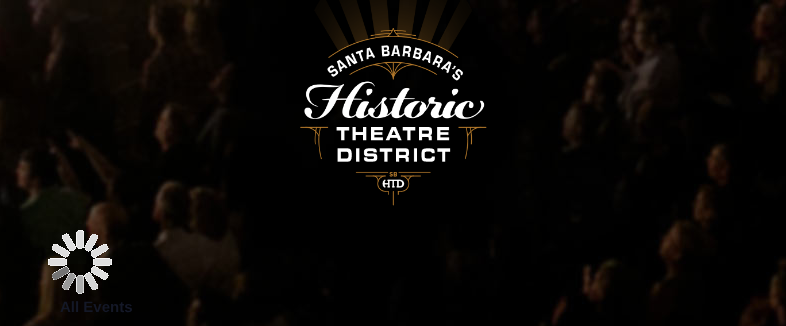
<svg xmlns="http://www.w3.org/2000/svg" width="786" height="326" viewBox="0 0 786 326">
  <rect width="100%" height="100%" fill="#fff"/>
  <image x="0" y="0" width="786" height="326" href="img/1.png"/>
  <image x="300" y="0" width="187" height="206" href="img/2.png"/>
  <image x="48" y="230" width="64" height="64" href="img/3.png"/>
  <text x="60" y="312" font-family="Liberation Sans" font-size="15" font-weight="bold" fill="#141827">All Events</text>
</svg>
